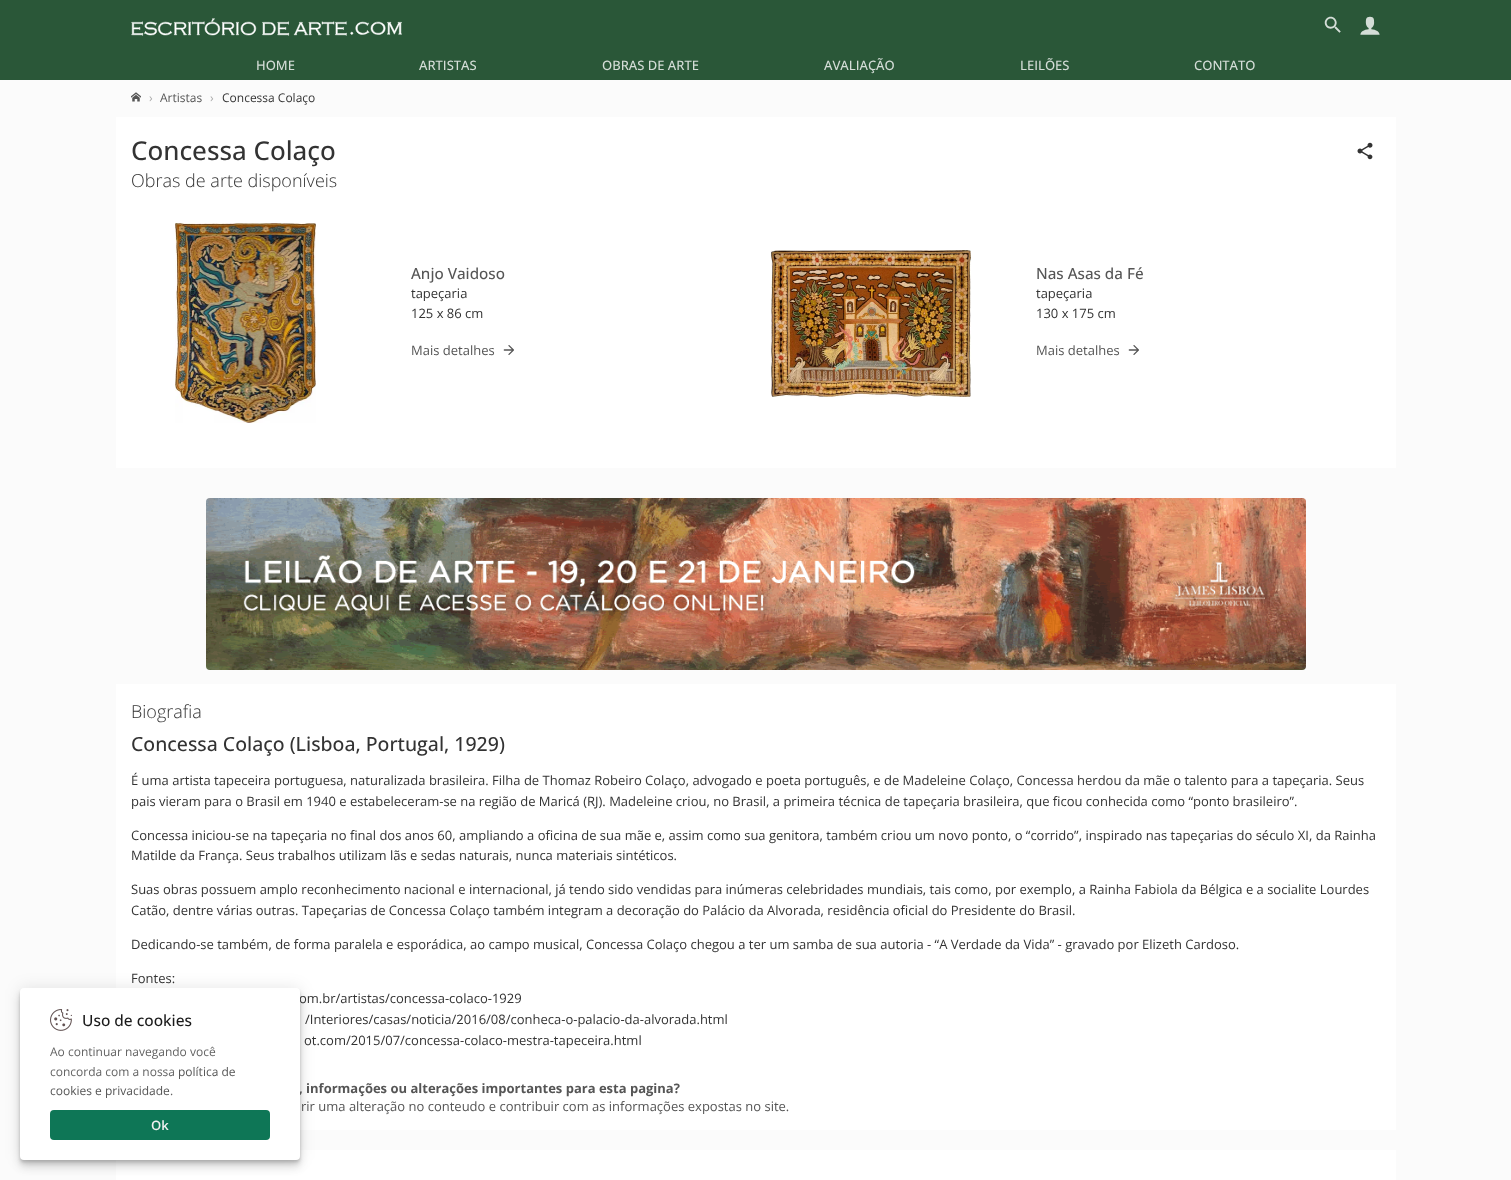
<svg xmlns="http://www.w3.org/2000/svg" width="1511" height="1180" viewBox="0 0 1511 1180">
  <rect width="100%" height="100%" fill="#fbfbfb"/>
  <path d="M0 0h1511v80H0z" fill="#2a5738"/>
  <image x="131" y="18" width="271" height="18" href="img/1.png"/>
  <image x="1324" y="16" width="17" height="17" href="img/2.png"/>
  <image x="1360" y="16" width="20" height="19" href="img/3.png"/>
  <image x="131" y="92" width="10" height="10" href="img/4.png"/>
  <path d="M116 117h1280v351H116z" fill="#fff"/>
  <image x="1357" y="142" width="16" height="18" href="img/5.png"/>
  <image x="175" y="223" width="141" height="200" href="img/6.png"/>
  <image x="503" y="345" width="11" height="10" href="img/7.png"/>
  <image x="771" y="250" width="200" height="147" href="img/8.png"/>
  <image x="1128" y="345" width="11" height="10" href="img/9.png"/>
  <image x="206" y="498" width="1100" height="172" href="img/10.png"/>
  <path d="M116 684h1280v446H116z" fill="#fff"/>
  <path d="M116 1150h1280v30H116z" fill="#fff"/>
  <rect x="20" y="988" width="280" height="172" rx="4" fill="#0000001a" filter="blur(8px)"/>
  <rect x="20" y="996" width="280" height="172" rx="4" fill="#0000001a" filter="blur(4px)"/>
  <rect x="20" y="992" width="280" height="172" rx="4" fill="#0000001a" filter="blur(2px)"/>
  <rect x="20" y="990" width="280" height="172" rx="4" fill="#0000001a" filter="blur(1px)"/>
  <g font-family="Open Sans" font-size="13" font-weight="500" fill="#d4ddd7">
    <text x="256" y="70">HOME</text>
    <text x="419" y="70">ARTISTAS</text>
    <text x="602" y="70">OBRAS DE ARTE</text>
    <text x="824" y="70">AVALIAÇÃO</text>
    <text x="1020" y="70">LEILÕES</text>
    <text x="1194" y="70">CONTATO</text>
  </g>
  <text x="149" y="102" font-family="Open Sans" font-size="12" fill="#aaa">›</text>
  <text x="160" y="102" font-family="Open Sans" font-size="12" fill="#555">Artistas</text>
  <text x="210" y="102" font-family="Open Sans" font-size="12" fill="#aaa">›</text>
  <text x="222" y="102" font-family="Open Sans" font-size="12" fill="#333">Concessa Colaço</text>
  <text x="131" y="160" font-family="Open Sans" font-size="26" font-weight="500" fill="#333">Concessa Colaço</text>
  <text x="131" y="187" font-family="Open Sans" font-size="18" font-weight="300" fill="#333">Obras de arte disponíveis</text>
  <text x="411" y="279" font-family="Open Sans" font-size="15.25" font-weight="500" fill="#555">Anjo Vaidoso</text>
  <g font-family="Open Sans" font-size="13" fill="#333">
    <text x="411" y="298">tapeçaria</text>
    <text x="411" y="318">125 x 86 cm</text>
  </g>
  <text x="411" y="355" font-family="Open Sans" font-size="13" fill="#555">Mais detalhes</text>
  <text x="1036" y="279" font-family="Open Sans" font-size="15.25" font-weight="500" fill="#555">Nas Asas da Fé</text>
  <g font-family="Open Sans" font-size="13" fill="#333">
    <text x="1036" y="298">tapeçaria</text>
    <text x="1036" y="318">130 x 175 cm</text>
  </g>
  <text x="1036" y="355" font-family="Open Sans" font-size="13" fill="#555">Mais detalhes</text>
  <text x="131" y="718" font-family="Open Sans" font-size="18" font-weight="300" fill="#333">Biografia</text>
  <text x="131" y="751" font-family="Open Sans" font-size="19.5" font-weight="500" fill="#333">Concessa Colaço (Lisboa, Portugal, 1929)</text>
  <g font-family="Open Sans" font-size="13" fill="#333">
    <text x="131" y="785">É uma artista tapeceira portuguesa, naturalizada brasileira. Filha de Thomaz Robeiro Colaço, advogado e poeta português, e de Madeleine Colaço, Concessa herdou da mãe o talento para a tapeçaria. Seus</text>
    <text x="131" y="806">pais vieram para o Brasil em 1940 e estabeleceram-se na região de Maricá (RJ). Madeleine criou, no Brasil, a primeira técnica de tapeçaria brasileira, que ficou conhecida como “ponto brasileiro”.</text>
    <text x="131" y="840">Concessa iniciou-se na tapeçaria no final dos anos 60, ampliando a oficina de sua mãe e, assim como sua genitora, também criou um novo ponto, o “corrido”, inspirado nas tapeçarias do século XI, da Rainha</text>
    <text x="131" y="860">Matilde da França. Seus trabalhos utilizam lãs e sedas naturais, nunca materiais sintéticos.</text>
    <text x="131" y="894">Suas obras possuem amplo reconhecimento nacional e internacional, já tendo sido vendidas para inúmeras celebridades mundiais, tais como, por exemplo, a Rainha Fabiola da Bélgica e a socialite Lourdes</text>
    <text x="131" y="915">Catão, dentre várias outras. Tapeçarias de Concessa Colaço também integram a decoração do Palácio da Alvorada, residência oficial do Presidente do Brasil.</text>
    <text x="131" y="949">Dedicando-se também, de forma paralela e esporádica, ao campo musical, Concessa Colaço chegou a ter um samba de sua autoria - “A Verdade da Vida” - gravado por Elizeth Cardoso.</text>
    <text x="131" y="983">Fontes:</text>
    <text x="299" y="1003">om.br/artistas/concessa-colaco-1929</text>
    <text x="305" y="1024">/Interiores/casas/noticia/2016/08/conheca-o-palacio-da-alvorada.html</text>
    <text x="304" y="1045">ot.com/2015/07/concessa-colaco-mestra-tapeceira.html</text>
  </g>
  <text x="299" y="1093" font-family="Open Sans" font-size="13" font-weight="bold" fill="#555">, informações ou alterações importantes para esta pagina?</text>
  <text x="301" y="1111" font-family="Open Sans" font-size="13" fill="#555">rir uma alteração no conteudo e contribuir com as informações expostas no site.</text>
  <rect x="20" y="988" width="280" height="172" rx="4" fill="#fff"/>
  <image x="50" y="1009" width="22" height="22" href="img/11.png"/>
  <text x="82" y="1026" font-family="Open Sans" font-size="15.5" font-weight="500" fill="#1a1a1a">Uso de cookies</text>
  <g font-family="Open Sans" font-size="12" fill="#636363">
    <text x="50" y="1056">Ao continuar navegando você</text>
    <text x="50" y="1076">concorda com a nossa</text>
  </g>
  <g font-family="Open Sans" font-size="12" fill="#555">
    <text x="178" y="1076">política de</text>
    <text x="50" y="1095">cookies e privacidade</text>
  </g>
  <text x="170" y="1095" font-family="Open Sans" font-size="12" fill="#636363">.</text>
  <rect x="50" y="1110" width="220" height="30" rx="4" fill="#0e7656"/>
  <text x="151" y="1130" font-family="Open Sans" font-size="13" font-weight="600" fill="#f1f1f1">Ok</text>
</svg>
